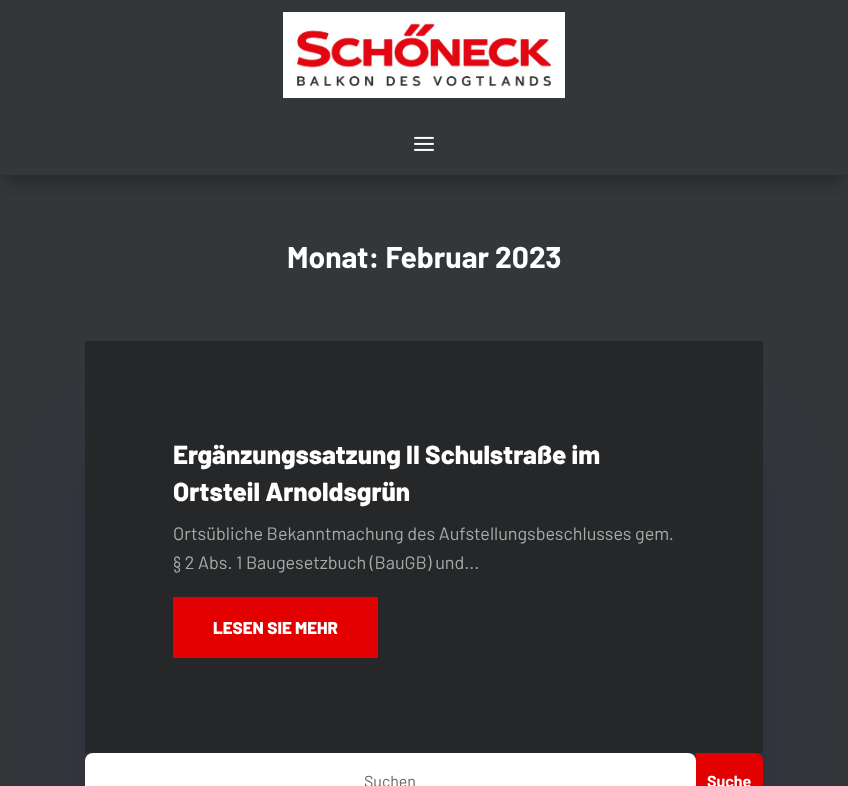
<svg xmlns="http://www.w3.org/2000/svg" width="848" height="786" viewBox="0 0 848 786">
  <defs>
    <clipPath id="clip1"><path d="M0 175h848v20H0z"/></clipPath>
  </defs>
  <rect width="100%" height="100%" fill="#34373a"/>
  <image x="283" y="12" width="282" height="86" href="img/1.png"/>
  <g clip-path="url(#clip1)">
    <path d="M6 128h836v53H6z" fill="#0000004d" filter="blur(9px)"/>
  </g>
  <image x="414" y="136" width="20" height="15" href="img/2.png"/>
  <path d="M95 441h658v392H95z" fill="#190d6d33" filter="blur(40px)"/>
  <path d="M85 341h678v412H85z" fill="#252729"/>
  <path d="M173 597h205v61H173z" fill="#e30000"/>
  <rect x="85" y="753" width="611" height="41" rx="8" fill="#fff"/>
  <path d="M696 753H755C759.5 753 763 756.5 763 761V786C763 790.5 759.5 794 755 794H696Z" fill="#e30000"/>
  <text x="287" y="268" font-family="Barlow" font-size="30" font-weight="bold" fill="#fff">Monat: Februar 2023</text>
  <g font-family="Barlow" font-size="26" font-weight="800" fill="#fff">
    <text x="173" y="464">Ergänzungssatzung II Schulstraße im</text>
    <text x="173" y="501">Ortsteil Arnoldsgrün</text>
  </g>
  <g font-family="Barlow" font-size="18" fill="#a8a9a9">
    <text x="173" y="540">Ortsübliche Bekanntmachung des Aufstellungsbeschlusses gem.</text>
    <text x="173" y="569">§ 2 Abs. 1 Baugesetzbuch (BauGB) und...</text>
  </g>
  <text x="213" y="634" font-family="Barlow" font-size="17" font-weight="800" fill="#fff">LESEN SIE MEHR</text>
  <text x="364" y="787" font-family="Barlow" font-size="16" fill="#666">Suchen</text>
  <text x="707" y="787" font-family="Barlow" font-size="16" font-weight="bold" fill="#fff">Suche</text>
</svg>
